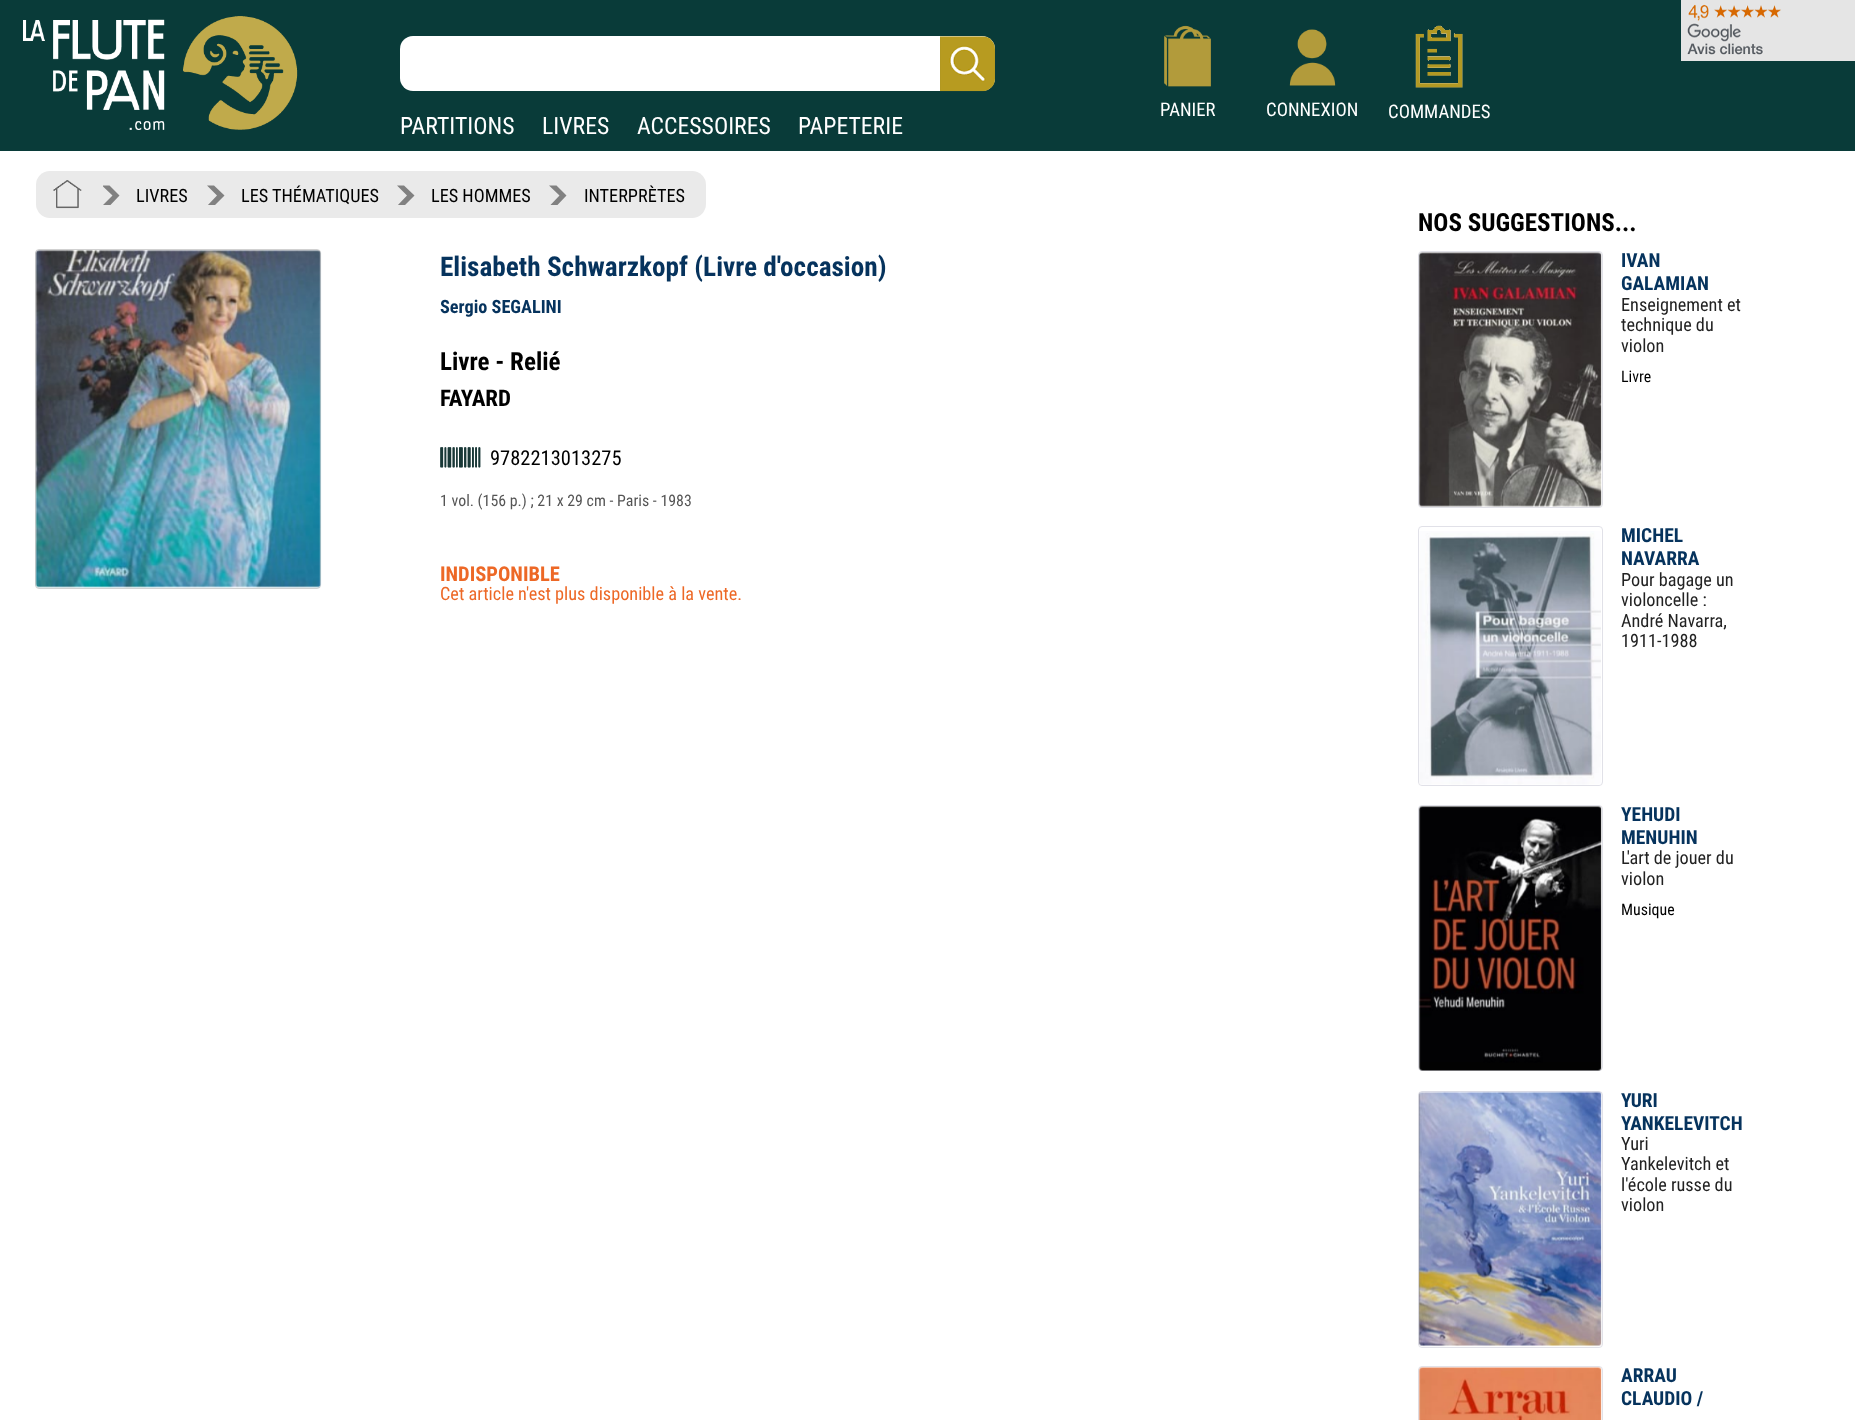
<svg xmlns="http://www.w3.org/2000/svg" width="1855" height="1420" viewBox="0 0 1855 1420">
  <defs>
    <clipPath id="clip1"><path d="M103 185h20v20H103z"/></clipPath>
    <clipPath id="clip2"><path d="M206 185h20v20H206z"/></clipPath>
    <clipPath id="clip3"><path d="M396 185h22v20H396z"/></clipPath>
    <clipPath id="clip4"><path d="M549 185h21v20H549z"/></clipPath>
  </defs>
  <rect width="100%" height="100%" fill="#fff"/>
  <path d="M0 0h1855v151H0z" fill="#093b39"/>
  <image x="1681" y="0" width="174" height="61" href="img/1.png"/>
  <image x="23" y="16" width="275" height="114" href="img/2.png"/>
  <image x="1164" y="25" width="47" height="62" href="img/3.png"/>
  <image x="1289" y="29" width="47" height="57" href="img/4.png"/>
  <image x="1415" y="25" width="48" height="63" href="img/5.png"/>
  <rect x="400" y="36" width="595" height="55" rx="13" fill="#fff"/>
  <image x="940" y="36" width="55" height="56" href="img/6.png"/>
  <rect x="36" y="171" width="670" height="47" rx="14" fill="#eaeaea"/>
  <image x="53" y="180" width="29" height="29" href="img/7.png"/>
  <g clip-path="url(#clip1)">
    <path d="M102 185.5L112.5 195.5L102 206H109.5L119.5 195.5L109.5 185.5Z" fill="#818181"/>
  </g>
  <g clip-path="url(#clip2)">
    <path d="M207 185.5L217 195.5L207 206H214L224.5 195.5L214 185.5Z" fill="#818181"/>
  </g>
  <g clip-path="url(#clip3)">
    <path d="M397 185.5L407 195.5L397 206H404L414.5 195.5L404 185.5Z" fill="#818181"/>
  </g>
  <g clip-path="url(#clip4)">
    <path d="M549 185.5L559.5 195.5L549.5 206H556.5L566.5 195.5L556.5 185.5Z" fill="#818181"/>
  </g>
  <rect x="35.5" y="249.5" width="285" height="339" rx="3.5" fill="none" stroke="#d1d1d1"/>
  <image x="35" y="250" width="287" height="338" href="img/8.png"/>
  <image x="440" y="447" width="41" height="21" href="img/9.png"/>
  <rect x="1418.5" y="251.5" width="184" height="256" rx="3.5" fill="none" stroke="#e1e1e8"/>
  <image x="1418" y="252" width="184" height="255" href="img/10.png"/>
  <rect x="1418.5" y="526.5" width="184" height="259" rx="3.5" fill="none" stroke="#e1e1e8"/>
  <image x="1419" y="531" width="182" height="254" href="img/11.png"/>
  <rect x="1418.5" y="805.5" width="184" height="265" rx="3.5" fill="none" stroke="#e1e1e8"/>
  <image x="1418" y="806" width="184" height="265" href="img/12.png"/>
  <rect x="1418.5" y="1091.5" width="184" height="256" rx="3.5" fill="none" stroke="#e1e1e8"/>
  <image x="1418" y="1091" width="184" height="256" href="img/13.png"/>
  <rect x="1418.5" y="1366.5" width="184" height="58" rx="3.5" fill="none" stroke="#e1e1e8"/>
  <image x="1418" y="1367" width="184" height="53" href="img/14.png"/>
  <g font-family="Roboto Condensed" font-size="18.75" fill="#fff">
    <text x="1160" y="116">PANIER</text>
    <text x="1266" y="116">CONNEXION</text>
    <text x="1388" y="118">COMMANDES</text>
  </g>
  <g font-family="Roboto Condensed" font-size="23.75" fill="#fff">
    <text x="400" y="134">PARTITIONS</text>
    <text x="542" y="134">LIVRES</text>
    <text x="637" y="134">ACCESSOIRES</text>
    <text x="798" y="134">PAPETERIE</text>
  </g>
  <g font-family="Roboto Condensed" font-size="18.25" fill="#000">
    <text x="136" y="202">LIVRES</text>
    <text x="241" y="202">LES THÉMATIQUES</text>
    <text x="431" y="202">LES HOMMES</text>
    <text x="584" y="202">INTERPRÈTES</text>
  </g>
  <text x="440" y="276" font-family="Roboto Condensed" font-size="27.25" font-weight="bold" fill="#06335d">Elisabeth Schwarzkopf (Livre d'occasion)</text>
  <text x="440" y="313" font-family="Roboto Condensed" font-size="18.25" font-weight="bold" fill="#06335d">Sergio SEGALINI</text>
  <text x="440" y="370" font-family="Roboto Condensed" font-size="25" font-weight="bold" fill="#000">Livre - Relié</text>
  <text x="440" y="406" font-family="Roboto Condensed" font-size="23" font-weight="bold" fill="#000">FAYARD</text>
  <text x="490" y="465" font-family="Roboto Condensed" font-size="20.5" fill="#000">9782213013275</text>
  <text x="440" y="506" font-family="Roboto Condensed" font-size="15.9" fill="#555">1 vol. (156 p.) ; 21 x 29 cm - Paris - 1983</text>
  <text x="440" y="581" font-family="Roboto Condensed" font-size="20.5" font-weight="bold" fill="#ed6826">INDISPONIBLE</text>
  <text x="440" y="600" font-family="Roboto Condensed" font-size="18.25" fill="#ed6826">Cet article n'est plus disponible à la vente.</text>
  <text x="1418" y="231" font-family="Roboto Condensed" font-size="25" font-weight="bold" fill="#000">NOS SUGGESTIONS...</text>
  <g font-family="Roboto Condensed" font-size="19.5" font-weight="bold" fill="#06335d">
    <text x="1621" y="267">IVAN</text>
    <text x="1621" y="290">GALAMIAN</text>
  </g>
  <g font-family="Roboto Condensed" font-size="18.25" fill="#222">
    <text x="1621" y="311">Enseignement et</text>
    <text x="1621" y="331">technique du</text>
    <text x="1621" y="352">violon</text>
  </g>
  <text x="1621" y="382" font-family="Roboto Condensed" font-size="15.9" fill="#000">Livre</text>
  <g font-family="Roboto Condensed" font-size="19.5" font-weight="bold" fill="#06335d">
    <text x="1621" y="542">MICHEL</text>
    <text x="1621" y="565">NAVARRA</text>
  </g>
  <g font-family="Roboto Condensed" font-size="18.25" fill="#222">
    <text x="1621" y="586">Pour bagage un</text>
    <text x="1621" y="606">violoncelle :</text>
    <text x="1621" y="627">André Navarra,</text>
    <text x="1621" y="647">1911-1988</text>
  </g>
  <g font-family="Roboto Condensed" font-size="19.5" font-weight="bold" fill="#06335d">
    <text x="1621" y="821">YEHUDI</text>
    <text x="1621" y="844">MENUHIN</text>
  </g>
  <g font-family="Roboto Condensed" font-size="18.25" fill="#222">
    <text x="1621" y="864">L'art de jouer du</text>
    <text x="1621" y="885">violon</text>
  </g>
  <text x="1621" y="915" font-family="Roboto Condensed" font-size="15.9" fill="#000">Musique</text>
  <g font-family="Roboto Condensed" font-size="19.5" font-weight="bold" fill="#06335d">
    <text x="1621" y="1107">YURI</text>
    <text x="1621" y="1130">YANKELEVITCH</text>
  </g>
  <g font-family="Roboto Condensed" font-size="18.25" fill="#222">
    <text x="1621" y="1150">Yuri</text>
    <text x="1621" y="1170">Yankelevitch et</text>
    <text x="1621" y="1191">l'école russe du</text>
    <text x="1621" y="1211">violon</text>
  </g>
  <g font-family="Roboto Condensed" font-size="19.5" font-weight="bold" fill="#06335d">
    <text x="1621" y="1382">ARRAU</text>
    <text x="1621" y="1405">CLAUDIO /</text>
  </g>
</svg>
